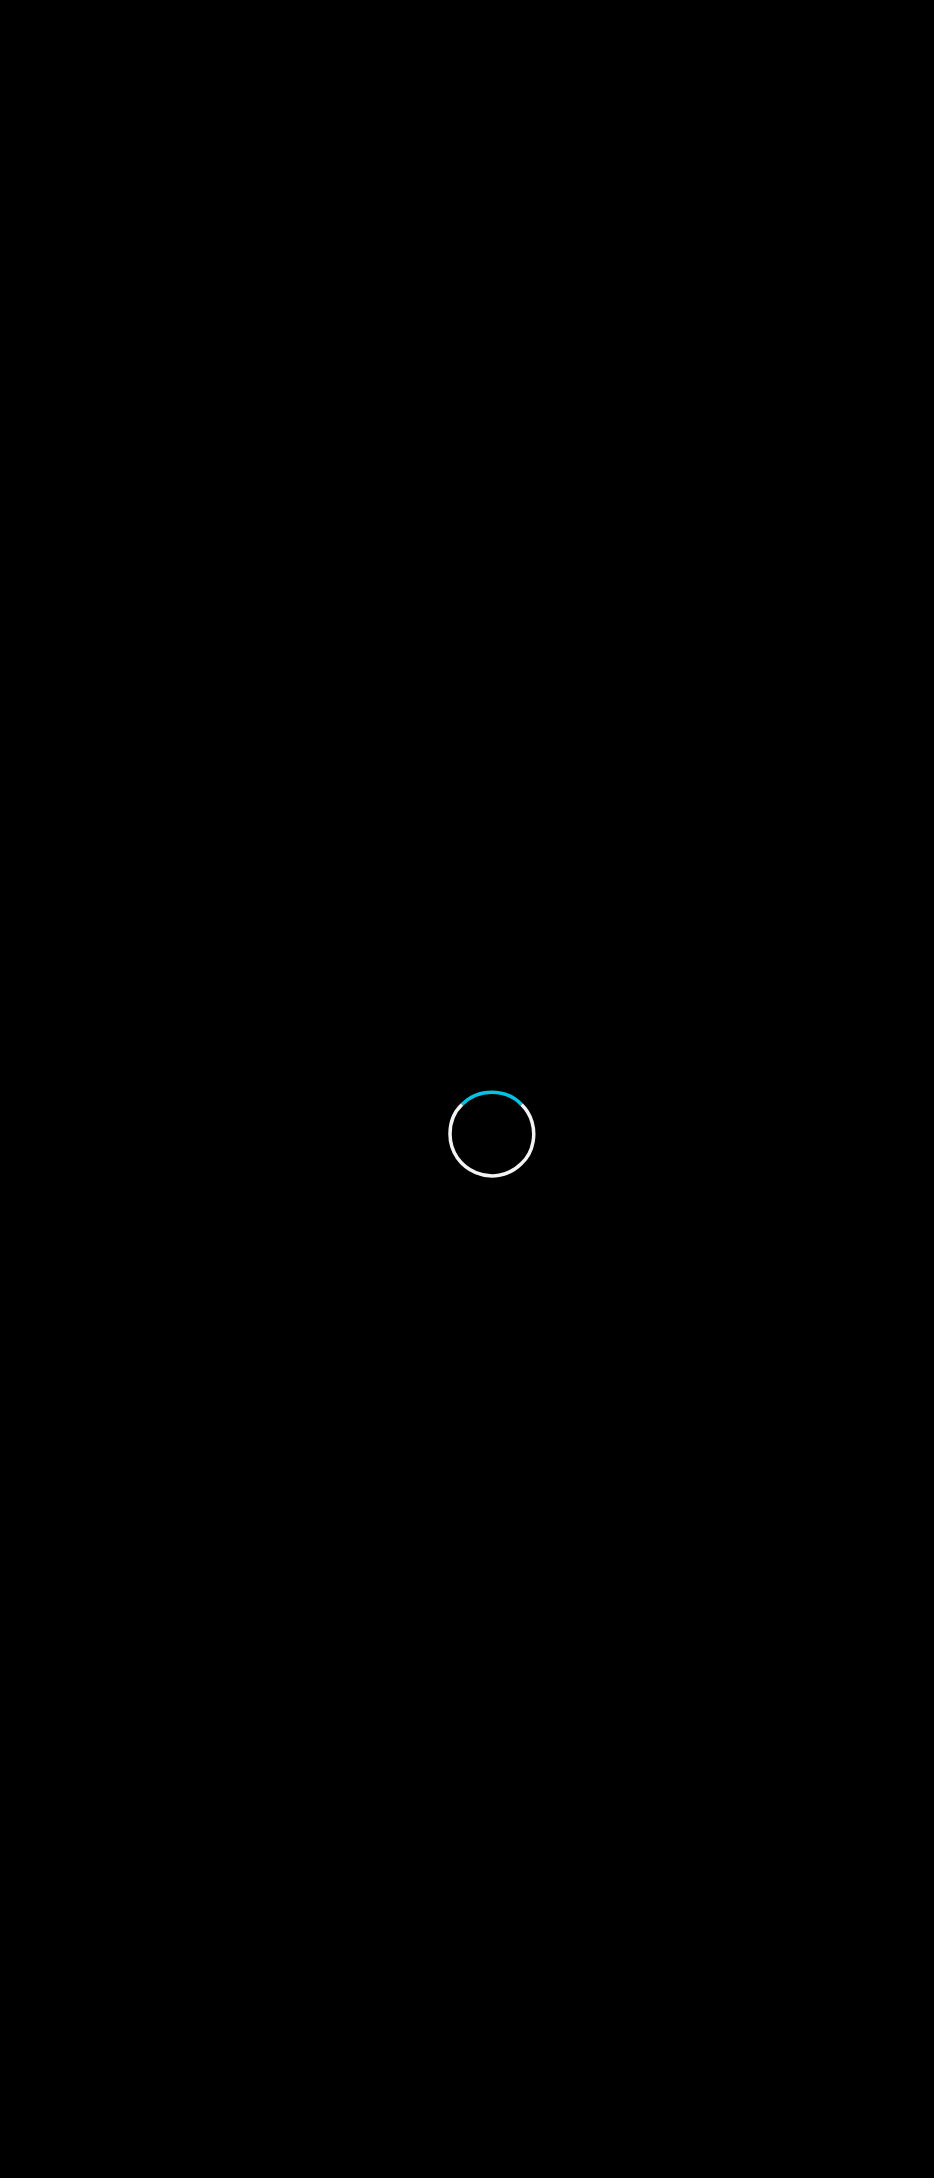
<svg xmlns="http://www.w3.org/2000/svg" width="934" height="2178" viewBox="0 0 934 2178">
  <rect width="100%" height="100%" fill="#000"/>
  <path d="M462 1104.5C478 1088 505.5 1088 521.5 1104.5" fill="none" stroke="#02c4e2" stroke-width="3.5"/>
  <path d="M521.5 1104.5C531.5 1114 535.5 1128.5 533 1142C531.5 1150.5 527.5 1158 521.5 1163.5C495 1190 450 1171 450 1134C450 1123 454 1112 462 1104.5" fill="none" stroke="#f3f3f3" stroke-width="3.5"/>
</svg>
